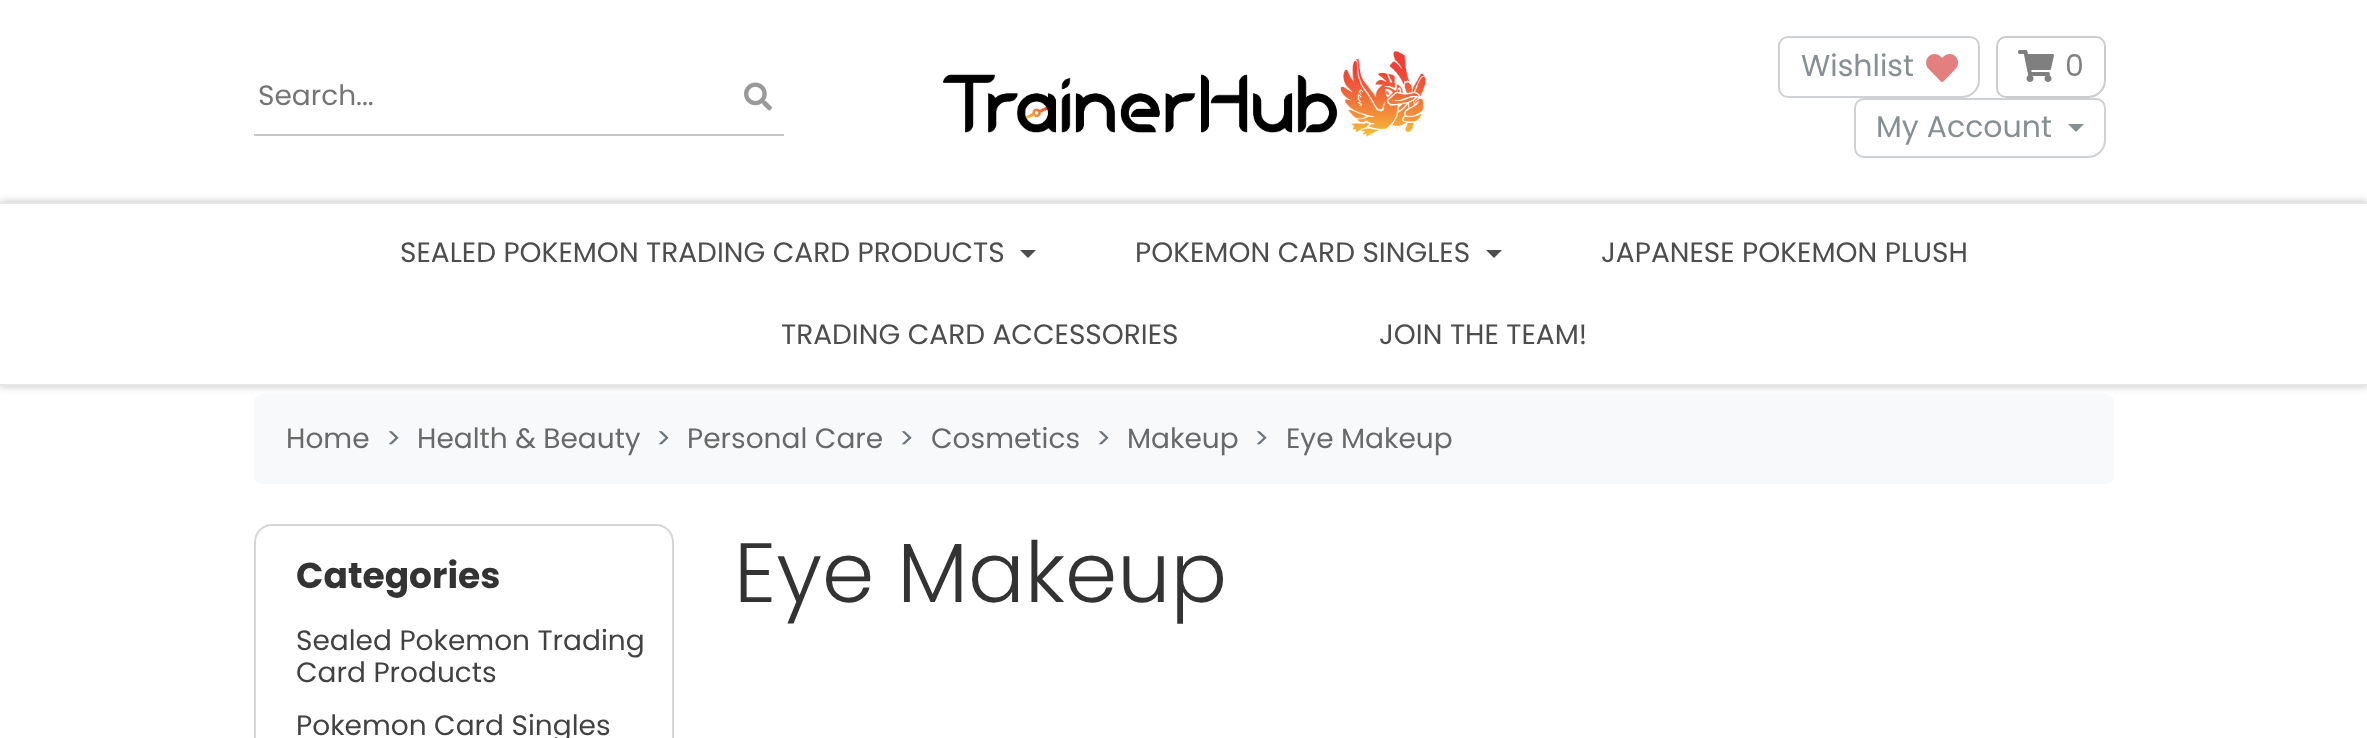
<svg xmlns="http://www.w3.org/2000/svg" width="2367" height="738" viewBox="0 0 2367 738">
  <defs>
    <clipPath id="clip1"><path d="M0 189H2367V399H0ZM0 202H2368V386H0Z" clip-rule="evenodd"/></clipPath>
  </defs>
  <rect width="100%" height="100%" fill="#fff"/>
  <path d="M254 134h530v2H254z" fill="#c7c7c7"/>
  <image x="744" y="82" width="28" height="29" href="img/1.png"/>
  <image x="943" y="51" width="483" height="86" href="img/2.png"/>
  <path d="M1788 37H1970C1975 37 1979 41 1979 46V80C1979 89.5 1971.5 97 1962 97H1788C1783 97 1779 93 1779 88V46C1779 41 1783 37 1788 37Z" fill="none" stroke="#ced2d4" stroke-width="2"/>
  <image x="1926" y="54" width="33" height="28" href="img/3.png"/>
  <path d="M2006 37H2096C2101 37 2105 41 2105 46V80C2105 89.5 2097.5 97 2088 97H2006C2001 97 1997 93 1997 88V46C1997 41 2001 37 2006 37Z" fill="none" stroke="#ccc" stroke-width="2"/>
  <image x="2018" y="50" width="36" height="32" href="img/4.png"/>
  <path d="M1864 99H2096C2101 99 2105 103 2105 108V140C2105 149.5 2097.5 157 2088 157H1864C1859 157 1855 153 1855 148V108C1855 103 1859 99 1864 99Z" fill="none" stroke="#ced2d4" stroke-width="2"/>
  <path d="M2068 124H2084L2076 132Z" fill="#869093"/>
  <rect x="254" y="394" width="1860" height="90" rx="8" fill="#f8f9fa"/>
  <g clip-path="url(#clip1)">
    <path d="M0 202h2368v184H0z" fill="#00000040" filter="blur(4px)"/>
  </g>
  <path d="M0 202h2367v2H0z" fill="#e6e6e6"/>
  <path d="M0 384h2367v2H0z" fill="#e6e6e6"/>
  <path d="M1020 250H1036L1028 258Z" fill="#4d4d4d"/>
  <path d="M1486 250H1502L1494 258Z" fill="#4d4d4d"/>
  <path d="M272 525H656C665.5 525 673 532.5 673 542V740C673 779 641 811 602 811H272C262.5 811 255 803.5 255 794V542C255 532.5 262.5 525 272 525Z" fill="none" stroke="#d6d6d6" stroke-width="2"/>
  <text x="258" y="105" font-family="Poppins" font-size="28" fill="#757575">Search...</text>
  <text x="1801" y="76" font-family="Poppins" font-size="30" fill="#869093">Wishlist</text>
  <text x="2065" y="76" font-family="Poppins" font-size="30" fill="#808080">0</text>
  <text x="1876" y="137" font-family="Poppins" font-size="30" fill="#869093">My Account</text>
  <g font-family="Poppins" font-size="28" fill="#4d4d4d">
    <text x="400" y="262">SEALED POKEMON TRADING CARD PRODUCTS</text>
    <text x="1135" y="262">POKEMON CARD SINGLES</text>
    <text x="1601" y="262">JAPANESE POKEMON PLUSH</text>
    <text x="781" y="344">TRADING CARD ACCESSORIES</text>
    <text x="1379" y="344">JOIN THE TEAM!</text>
  </g>
  <text x="286" y="448" font-family="Poppins" font-size="28" fill="#696969">Home</text>
  <text x="386" y="448" font-family="Poppins" font-size="28" fill="#6c757d">&gt;</text>
  <text x="417" y="448" font-family="Poppins" font-size="28" fill="#696969">Health &amp; Beauty</text>
  <text x="656" y="448" font-family="Poppins" font-size="28" fill="#6c757d">&gt;</text>
  <text x="687" y="448" font-family="Poppins" font-size="28" fill="#696969">Personal Care</text>
  <text x="899" y="448" font-family="Poppins" font-size="28" fill="#6c757d">&gt;</text>
  <text x="931" y="448" font-family="Poppins" font-size="28" fill="#696969">Cosmetics</text>
  <text x="1096" y="448" font-family="Poppins" font-size="28" fill="#6c757d">&gt;</text>
  <text x="1127" y="448" font-family="Poppins" font-size="28" fill="#696969">Makeup</text>
  <text x="1254" y="448" font-family="Poppins" font-size="28" fill="#6c757d">&gt;</text>
  <text x="1286" y="448" font-family="Poppins" font-size="28" fill="#696969">Eye Makeup</text>
  <text x="296" y="588" font-family="Poppins" font-size="36" font-weight="bold" fill="#333">Categories</text>
  <g font-family="Poppins" font-size="28" fill="#424242">
    <text x="296" y="650">Sealed Pokemon Trading</text>
    <text x="296" y="682">Card Products</text>
    <text x="296" y="735">Pokemon Card Singles</text>
  </g>
  <text x="734" y="602" font-family="Poppins" font-size="84" font-weight="300" fill="#333">Eye Makeup</text>
</svg>
